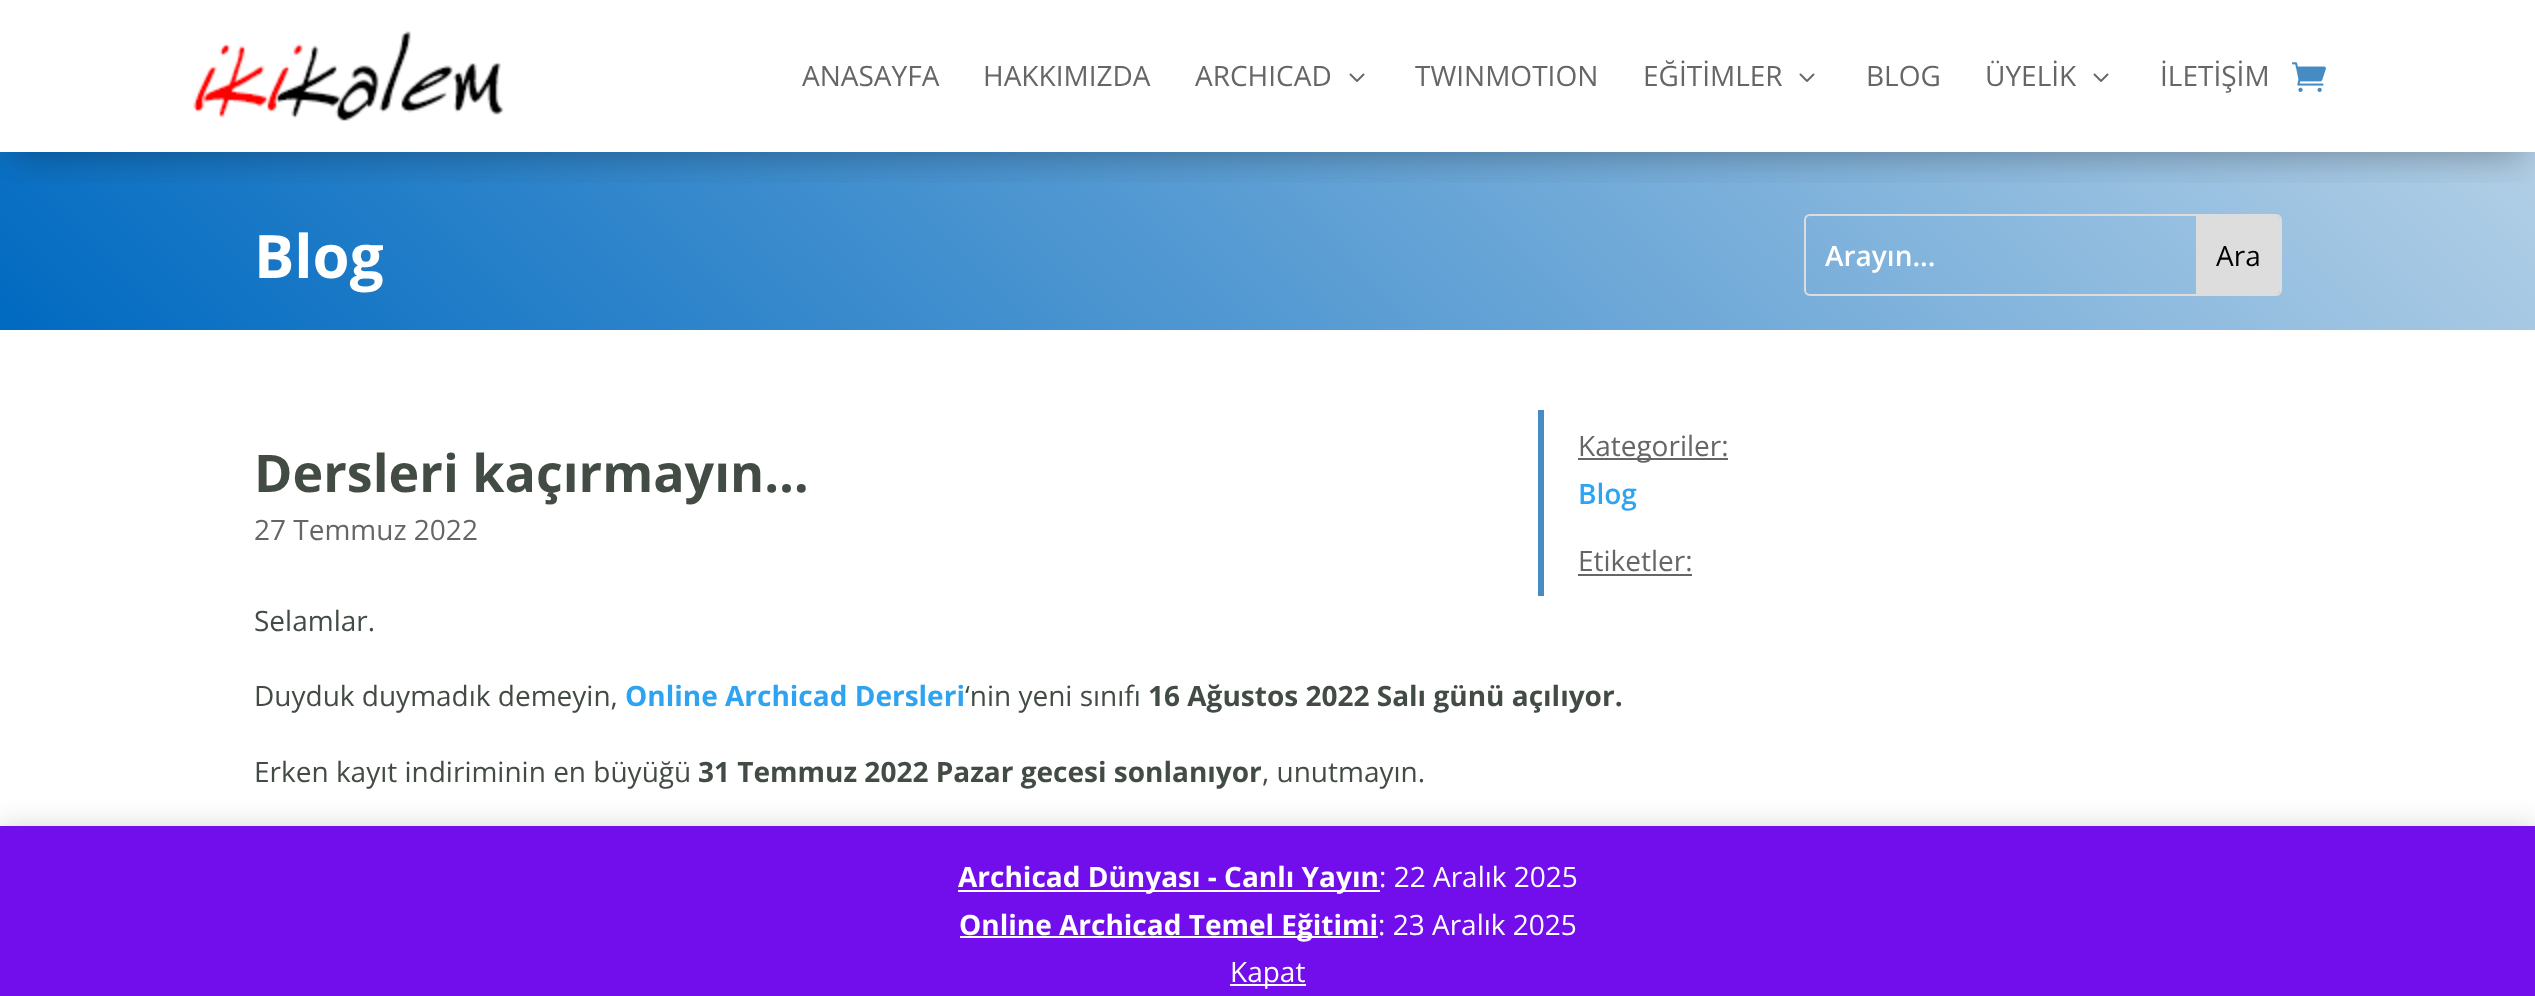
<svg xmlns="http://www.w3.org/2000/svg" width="2535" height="996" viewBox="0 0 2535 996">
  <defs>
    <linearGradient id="g1" gradientUnits="userSpaceOnUse" x1="590" y1="920" x2="1947" y2="-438"><stop offset="0" stop-color="#006ac1"/><stop offset="1" stop-color="#b2cfe6"/></linearGradient>
    <clipPath id="clip1"><path d="M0 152h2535v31H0z"/></clipPath>
  </defs>
  <rect width="100%" height="100%" fill="#fff"/>
  <path d="M0 152h2535v178H0z" fill="url(#g1)"/>
  <g clip-path="url(#clip1)">
    <path d="M12 28h2512v128H12z" fill="#0000004d" filter="blur(18px)"/>
  </g>
  <image x="193" y="31" width="311" height="90" href="img/1.png"/>
  <image x="1349" y="73" width="16" height="9" href="img/2.png"/>
  <image x="1799" y="73" width="16" height="9" href="img/2.png"/>
  <image x="2093" y="73" width="16" height="9" href="img/2.png"/>
  <image x="2291" y="62" width="35" height="30" href="img/3.png"/>
  <rect x="1805" y="215" width="476" height="80" rx="5" fill="none" stroke="#ddd" stroke-width="2"/>
  <path d="M2196 216H2276C2278 216 2280 218 2280 220V290C2280 292 2278 294 2276 294H2196Z" fill="#ddd"/>
  <path d="M1538 410h6v186H1538z" fill="#468bc3"/>
  <path d="M1578 458h150v2H1578z" fill="#666"/>
  <path d="M1578 574h114v2H1578z" fill="#666"/>
  <path d="M0 828h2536v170H0z" fill="#00000033" filter="blur(14px)"/>
  <path d="M0 826h2535v170H0z" fill="#720eec"/>
  <path d="M958 890h422v2H958z" fill="#fcfbfe"/>
  <path d="M960 936h418v2H960z" fill="#fcfbfe"/>
  <path d="M1230 984h76v2H1230z" fill="#fcfbfe"/>
  <g font-family="Open Sans" font-size="28" fill="#666">
    <text x="802" y="86">ANASAYFA</text>
    <text x="983" y="86">HAKKIMIZDA</text>
    <text x="1195" y="86">ARCHICAD</text>
    <text x="1415" y="86">TWINMOTION</text>
    <text x="1643" y="86">EĞİTİMLER</text>
    <text x="1866" y="86">BLOG</text>
    <text x="1985" y="86">ÜYELİK</text>
    <text x="2160" y="86">İLETİŞİM</text>
  </g>
  <text x="254" y="278" font-family="Open Sans" font-size="60" font-weight="bold" fill="#fff">Blog</text>
  <text x="1825" y="266" font-family="Open Sans" font-size="28" font-weight="600" fill="#fff">Arayın...</text>
  <text x="2216" y="266" font-family="Open Sans" font-size="28" fill="#000">Ara</text>
  <text x="254" y="492" font-family="Open Sans" font-size="52" font-weight="bold" fill="#424c44">Dersleri kaçırmayın…</text>
  <g font-family="Open Sans" font-size="28" fill="#666">
    <text x="254" y="540">27 Temmuz 2022</text>
    <text x="1578" y="456">Kategoriler:</text>
  </g>
  <text x="1578" y="504" font-family="Open Sans" font-size="28" font-weight="600" fill="#2ea3f2">Blog</text>
  <text x="1578" y="571" font-family="Open Sans" font-size="28" fill="#666">Etiketler:</text>
  <g font-family="Open Sans" font-size="28" fill="#424c44">
    <text x="254" y="631">Selamlar.</text>
    <text x="254" y="706">Duyduk duymadık demeyin,</text>
  </g>
  <text x="625" y="706" font-family="Open Sans" font-size="28" font-weight="bold" fill="#2ea3f2">Online Archicad Dersleri</text>
  <text x="965" y="706" font-family="Open Sans" font-size="28" fill="#424c44">‘nin yeni sınıfı</text>
  <text x="1148" y="706" font-family="Open Sans" font-size="28" font-weight="bold" fill="#424c44">16 Ağustos 2022 Salı günü açılıyor.</text>
  <text x="254" y="782" font-family="Open Sans" font-size="28" fill="#424c44">Erken kayıt indiriminin en büyüğü</text>
  <text x="698" y="782" font-family="Open Sans" font-size="28" font-weight="bold" fill="#424c44">31 Temmuz 2022 Pazar gecesi sonlanıyor</text>
  <text x="1262" y="782" font-family="Open Sans" font-size="28" fill="#424c44">, unutmayın.</text>
  <text x="958" y="887" font-family="Open Sans" font-size="28" font-weight="bold" fill="#fff">Archicad Dünyası - Canlı Yayın</text>
  <text x="1379" y="887" font-family="Open Sans" font-size="28" fill="#fff">: 22 Aralık 2025</text>
  <text x="959" y="935" font-family="Open Sans" font-size="28" font-weight="bold" fill="#fff">Online Archicad Temel Eğitimi</text>
  <g font-family="Open Sans" font-size="28" fill="#fff">
    <text x="1378" y="935">: 23 Aralık 2025</text>
    <text x="1230" y="982">Kapat</text>
  </g>
</svg>
